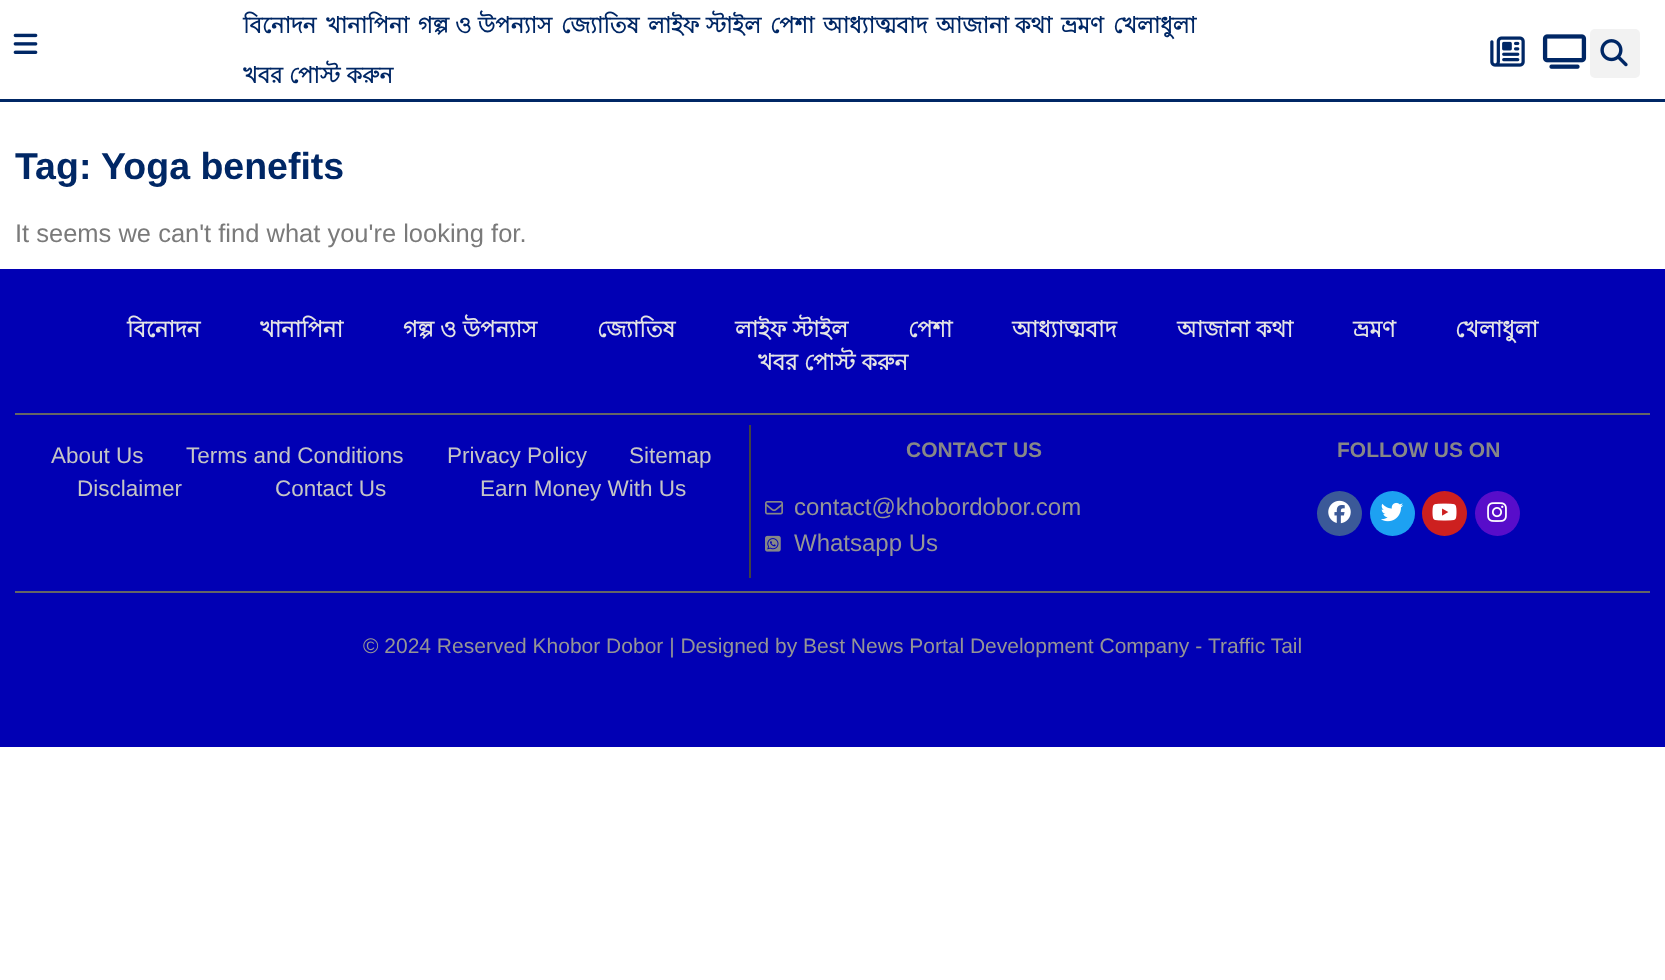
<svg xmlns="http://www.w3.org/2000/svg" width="1665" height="980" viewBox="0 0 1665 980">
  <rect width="100%" height="100%" fill="#fff"/>
  <path d="M0 99h1665v3H0z" fill="#002765"/>
  <image x="13" y="33" width="25" height="21" href="img/1.png"/>
  <image x="1490" y="36" width="35" height="31" href="img/2.png"/>
  <image x="1542" y="34" width="45" height="35" href="img/3.png"/>
  <rect x="1590" y="29" width="50" height="49" rx="5" fill="#f2f2f2"/>
  <image x="1600" y="39" width="28" height="28" href="img/4.png"/>
  <path d="M0 269h1665v478H0z" fill="#0100b4"/>
  <path d="M15 413h1635v2H15z" fill="#666"/>
  <path d="M749 425h2v153H749z" fill="#414141"/>
  <image x="765" y="501" width="18" height="14" href="img/5.png"/>
  <image x="765" y="535" width="16" height="17" href="img/6.png"/>
  <circle cx="1339.5" cy="513.5" r="22.5" fill="#3b5998"/>
  <image x="1328" y="500" width="23" height="24" href="img/7.png"/>
  <circle cx="1392.5" cy="513.5" r="22.5" fill="#1da1f2"/>
  <image x="1381" y="502" width="23" height="20" href="img/8.png"/>
  <circle cx="1444.5" cy="513.5" r="22.5" fill="#cd201f"/>
  <image x="1432" y="503" width="25" height="18" href="img/9.png"/>
  <circle cx="1497.5" cy="513.5" r="22.5" fill="#580dca"/>
  <image x="1487" y="502" width="20" height="20" href="img/10.png"/>
  <path d="M15 591h1635v2H15z" fill="#656565"/>
  <g font-family="Lohit Bengali" font-size="22.5" font-weight="bold" fill="#002765">
    <text x="243" y="33">বিনোদন</text>
    <text x="326" y="33">খানাপিনা</text>
    <text x="418" y="33">গল্প ও উপন্যাস</text>
    <text x="561" y="33">জ্যোতিষ</text>
    <text x="648" y="33">লাইফ স্টাইল</text>
    <text x="770" y="33">পেশা</text>
    <text x="823" y="33">আধ্যাত্মবাদ</text>
    <text x="936" y="33">আজানা কথা</text>
    <text x="1061" y="33">ভ্রমণ</text>
    <text x="1113" y="33">খেলাধুলা</text>
    <text x="243" y="83">খবর পোস্ট করুন</text>
  </g>
  <text x="15" y="179" font-family="Liberation Sans" font-size="37.5" font-weight="bold" fill="#002765">Tag: Yoga benefits</text>
  <text x="15" y="242" font-family="Liberation Sans" font-size="25.5" fill="#7a7a7a">It seems we can't find what you're looking for.</text>
  <g font-family="Lohit Bengali" font-size="22.5" font-weight="bold" fill="#e4e4e4">
    <text x="127" y="337">বিনোদন</text>
    <text x="260" y="337">খানাপিনা</text>
    <text x="403" y="337">গল্প ও উপন্যাস</text>
    <text x="597" y="337">জ্যোতিষ</text>
    <text x="735" y="337">লাইফ স্টাইল</text>
    <text x="908" y="337">পেশা</text>
    <text x="1012" y="337">আধ্যাত্মবাদ</text>
    <text x="1177" y="337">আজানা কথা</text>
    <text x="1353" y="337">ভ্রমণ</text>
    <text x="1455" y="337">খেলাধুলা</text>
    <text x="758" y="370">খবর পোস্ট করুন</text>
  </g>
  <g font-family="Liberation Sans" font-size="22.5" fill="#c5c5c5">
    <text x="51" y="463">About Us</text>
    <text x="186" y="463">Terms and Conditions</text>
    <text x="447" y="463">Privacy Policy</text>
    <text x="629" y="463">Sitemap</text>
    <text x="77" y="496">Disclaimer</text>
    <text x="275" y="496">Contact Us</text>
    <text x="480" y="496">Earn Money With Us</text>
  </g>
  <text x="906" y="457" font-family="Liberation Sans" font-size="21" font-weight="bold" fill="#878787">CONTACT US</text>
  <g font-family="Liberation Sans" font-size="24" fill="#959595">
    <text x="794" y="515">contact@khobordobor.com</text>
    <text x="794" y="551">Whatsapp Us</text>
  </g>
  <text x="1337" y="457" font-family="Liberation Sans" font-size="21" font-weight="bold" fill="#878787">FOLLOW US ON</text>
  <g font-family="Liberation Sans" font-size="21" fill="#959595">
    <text x="363" y="653">© 2024 Reserved Khobor Dobor | Designed by Best News Portal Development Company -</text>
    <text x="1208" y="653">Traffic Tail</text>
  </g>
</svg>
